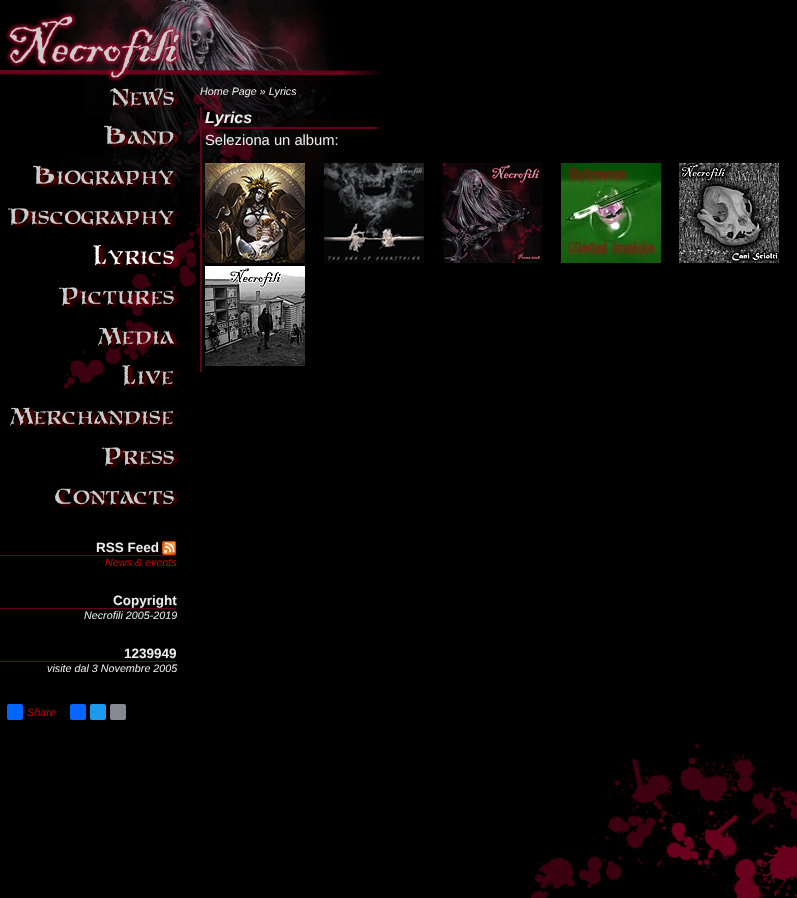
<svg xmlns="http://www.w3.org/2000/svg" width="797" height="898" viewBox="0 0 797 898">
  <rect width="100%" height="100%" fill="#000"/>
  <image x="531" y="744" width="266" height="154" href="img/1.png"/>
  <image x="0" y="0" width="381" height="75" href="img/2.png"/>
  <image x="183" y="75" width="146" height="223" href="img/3.png"/>
  <path d="M200 107h2v265H200z" fill="#68001b"/>
  <path d="M202 127h175v2H202z" fill="#68001b"/>
  <image x="205" y="163" width="100" height="100" href="img/4.png"/>
  <image x="324" y="163" width="100" height="100" href="img/5.png"/>
  <image x="442" y="163" width="100" height="100" href="img/6.png"/>
  <image x="561" y="163" width="100" height="100" href="img/7.png"/>
  <image x="679" y="163" width="100" height="100" href="img/8.png"/>
  <image x="205" y="266" width="100" height="100" href="img/9.png"/>
  <image x="83" y="75" width="100" height="40" href="img/10.png"/>
  <image x="104" y="115" width="79" height="40" href="img/11.png"/>
  <image x="33" y="155" width="150" height="40" href="img/12.png"/>
  <image x="8" y="195" width="171" height="34" href="img/13.png"/>
  <image x="93" y="235" width="90" height="40" href="img/14.png"/>
  <image x="59" y="275" width="124" height="40" href="img/15.png"/>
  <image x="83" y="315" width="96" height="40" href="img/16.png"/>
  <image x="63" y="355" width="116" height="34" href="img/17.png"/>
  <image x="10" y="407" width="169" height="22" href="img/18.png"/>
  <image x="102" y="447" width="77" height="22" href="img/19.png"/>
  <image x="55" y="488" width="124" height="20" href="img/20.png"/>
  <image x="162" y="541" width="14" height="14" href="img/21.png"/>
  <path d="M0 555h176v1H0z" fill="#68001b"/>
  <path d="M0 608h176v1H0z" fill="#68001b"/>
  <path d="M0 661h176v1H0z" fill="#68001b"/>
  <rect x="7" y="704" width="16" height="16" rx="2" fill="#0166ff"/>
  <rect x="70" y="704" width="16" height="16" rx="2" fill="#0866ff"/>
  <rect x="90" y="704" width="16" height="16" rx="2" fill="#1d9bf0"/>
  <rect x="110" y="704" width="16" height="16" rx="2" fill="#888990"/>
  <text x="200" y="95" font-family="Liberation Sans" font-size="10.75" font-style="italic" fill="#eee">Home Page » Lyrics</text>
  <text x="205" y="123" font-family="Liberation Sans" font-size="16" font-weight="bold" font-style="italic" fill="#eee">Lyrics</text>
  <text x="205" y="145" font-family="Liberation Sans" font-size="14.75" fill="#eee">Seleziona un album:</text>
  <text x="96" y="552" font-family="Liberation Sans" font-size="13.5" font-weight="bold" fill="#eee">RSS Feed</text>
  <text x="105" y="566" font-family="Liberation Sans" font-size="10.75" font-style="italic" fill="#c00">News &amp; events</text>
  <text x="113" y="605" font-family="Liberation Sans" font-size="13.5" font-weight="bold" fill="#eee">Copyright</text>
  <text x="84" y="619" font-family="Liberation Sans" font-size="10.75" font-style="italic" fill="#eee">Necrofili 2005-2019</text>
  <text x="124" y="658" font-family="Liberation Sans" font-size="13.5" font-weight="bold" fill="#eee">1239949</text>
  <text x="47" y="672" font-family="Liberation Sans" font-size="10.75" font-style="italic" fill="#eee">visite dal 3 Novembre 2005</text>
  <text x="27" y="716" font-family="Liberation Sans" font-size="10.75" font-style="italic" fill="#c00">Share</text>
</svg>
